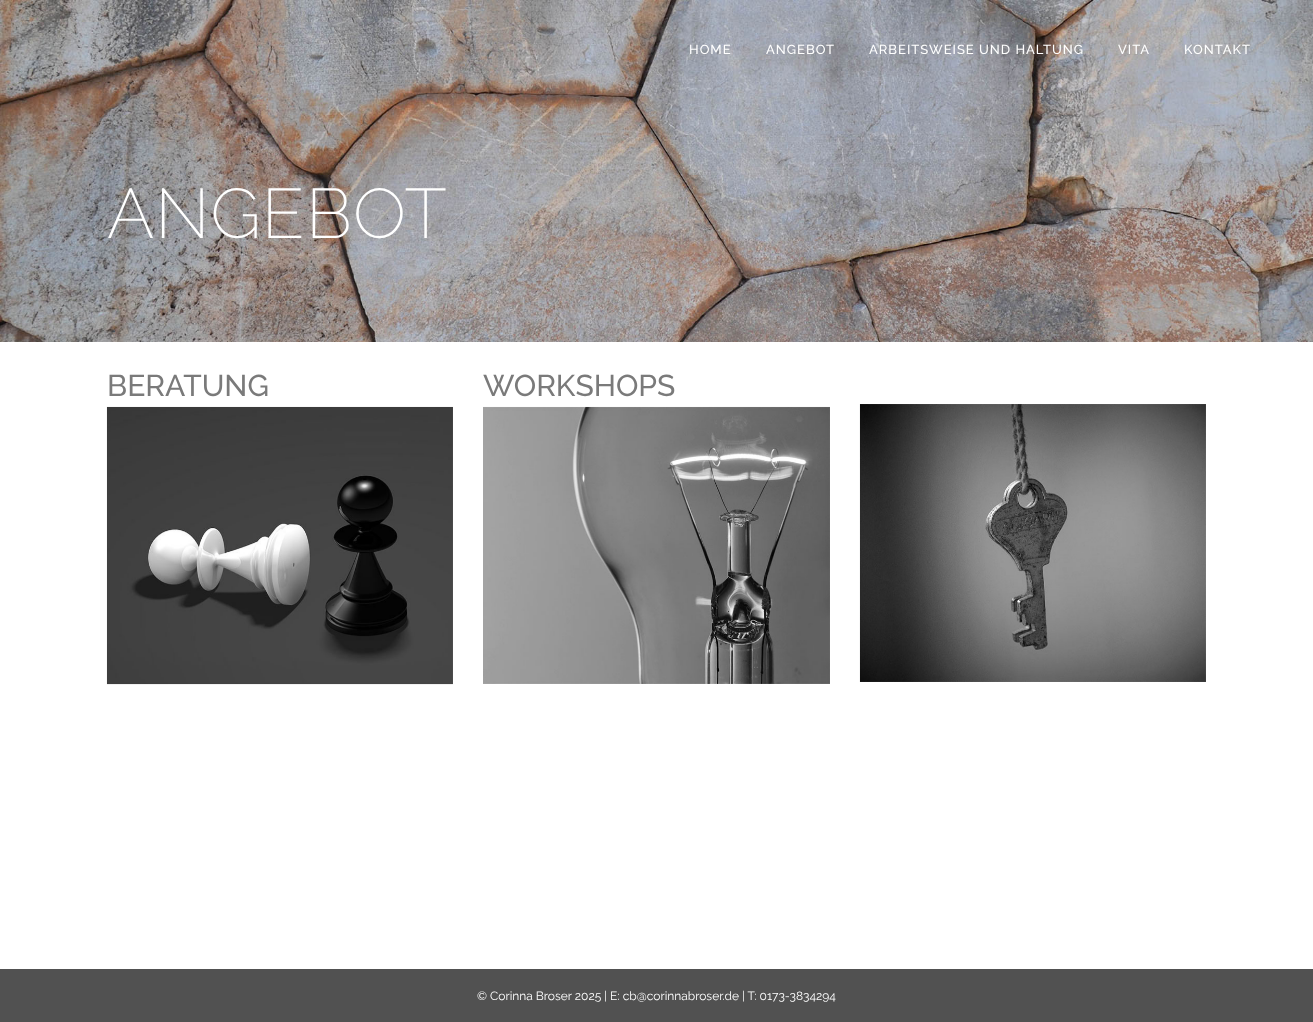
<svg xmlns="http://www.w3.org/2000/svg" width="1313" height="1022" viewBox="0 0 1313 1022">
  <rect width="100%" height="100%" fill="#fff"/>
  <image x="0" y="0" width="1313" height="342" href="img/1.png"/>
  <image x="106" y="406" width="347" height="279" href="img/2.png"/>
  <image x="483" y="406" width="347" height="278" href="img/3.png"/>
  <image x="859" y="404" width="347" height="278" href="img/4.png"/>
  <path d="M0 969h1313v53H0z" fill="#515151"/>
  <g font-family="Raleway" font-size="13" font-weight="500" letter-spacing="1" fill="#fff">
    <text x="689" y="54">HOME</text>
    <text x="766" y="54">ANGEBOT</text>
    <text x="869" y="54">ARBEITSWEISE UND HALTUNG</text>
    <text x="1118" y="54">VITA</text>
    <text x="1184" y="54">KONTAKT</text>
  </g>
  <text x="107" y="238" font-family="Raleway" font-size="70" font-weight="200" letter-spacing="1" fill="#fff">ANGEBOT</text>
  <g font-family="Raleway" font-size="30" font-weight="500" fill="#7a7a7a">
    <text x="107" y="396">BERATUNG</text>
    <text x="483" y="396">WORKSHOPS</text>
  </g>
  <text x="477" y="1000" font-family="Raleway" font-size="12" fill="#fff">© Corinna Broser 2025 | E: cb@corinnabroser.de | T: 0173-3834294</text>
</svg>
